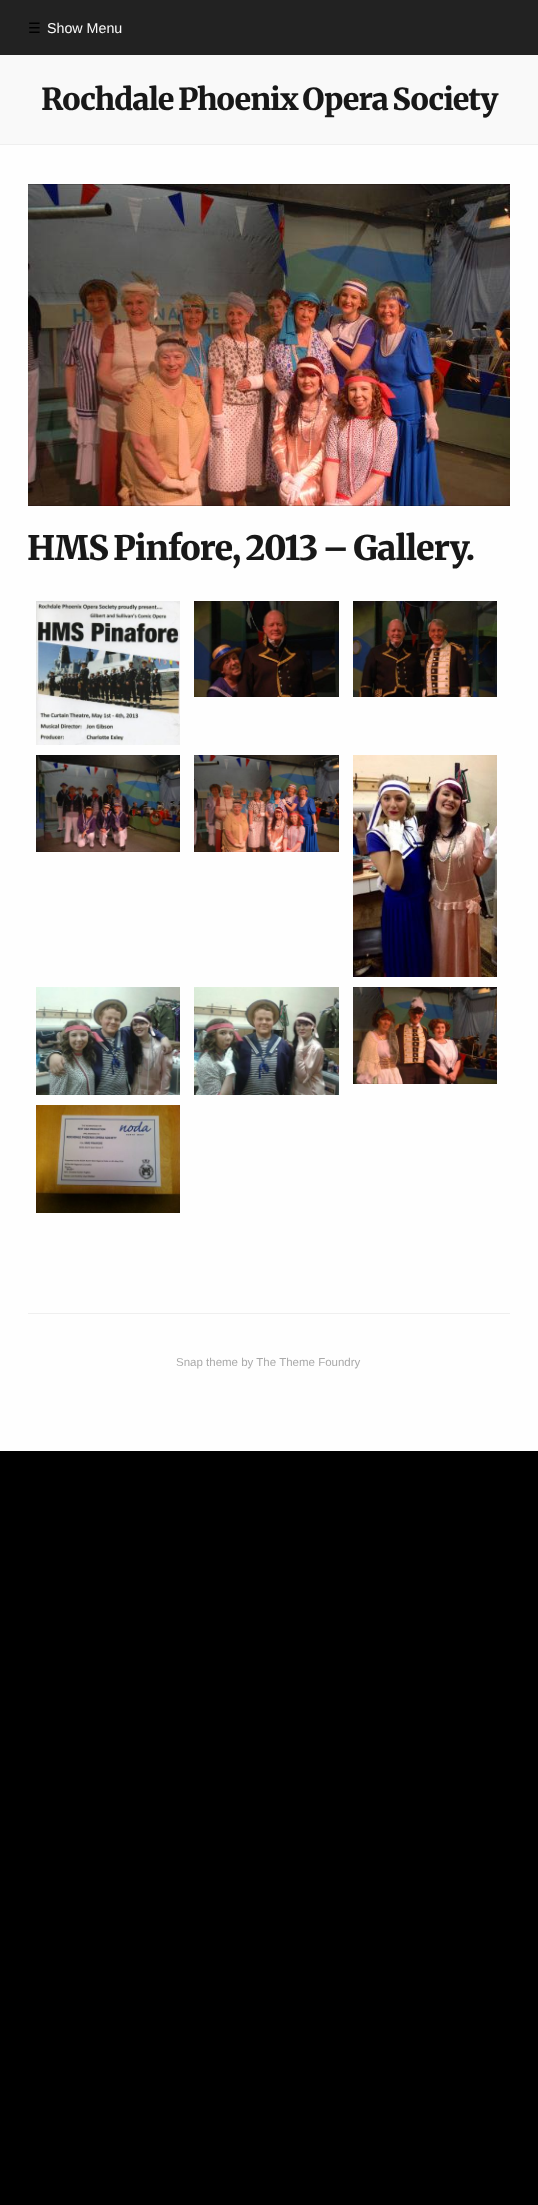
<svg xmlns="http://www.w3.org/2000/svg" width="538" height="2205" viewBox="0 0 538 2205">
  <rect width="100%" height="100%" fill="#000"/>
  <path d="M0 0h538v55H0z" fill="#222"/>
  <path d="M0 55h538v89H0z" fill="#f9f9f9"/>
  <path d="M0 144h538v1H0z" fill="#efefef"/>
  <path d="M0 145h538v1306H0z" fill="#fefefe"/>
  <image x="28" y="184" width="482" height="322" href="img/1.png"/>
  <image x="36" y="601" width="144" height="144" href="img/2.png"/>
  <image x="194" y="601" width="145" height="96" href="img/3.png"/>
  <image x="353" y="601" width="144" height="96" href="img/4.png"/>
  <image x="36" y="755" width="144" height="97" href="img/5.png"/>
  <image x="194" y="755" width="145" height="97" href="img/6.png"/>
  <image x="353" y="755" width="144" height="222" href="img/7.png"/>
  <image x="36" y="987" width="144" height="108" href="img/8.png"/>
  <image x="194" y="987" width="145" height="108" href="img/9.png"/>
  <image x="353" y="987" width="144" height="97" href="img/10.png"/>
  <image x="36" y="1105" width="144" height="108" href="img/11.png"/>
  <path d="M28 1313h482v1H28z" fill="#efefef"/>
  <text x="28" y="33" font-family="DejaVu Sans" font-size="14.25" fill="#000">☰</text>
  <text x="47" y="33" font-family="Liberation Sans" font-size="14.25" fill="#f9f9f9">Show Menu</text>
  <text x="41" y="110" word-spacing="-2" font-family="Merriweather" font-size="30.25" font-weight="900" letter-spacing="-0.9" fill="#181818">Rochdale Phoenix Opera Society</text>
  <text x="27" y="560" word-spacing="-2" font-family="Merriweather" font-size="33.75" font-weight="900" letter-spacing="-0.9" fill="#181818">HMS Pinfore, 2013 – Gallery.</text>
  <text x="176" y="1366" font-family="Liberation Sans" font-size="11.5" fill="#aaa">Snap theme by The Theme Foundry</text>
</svg>
